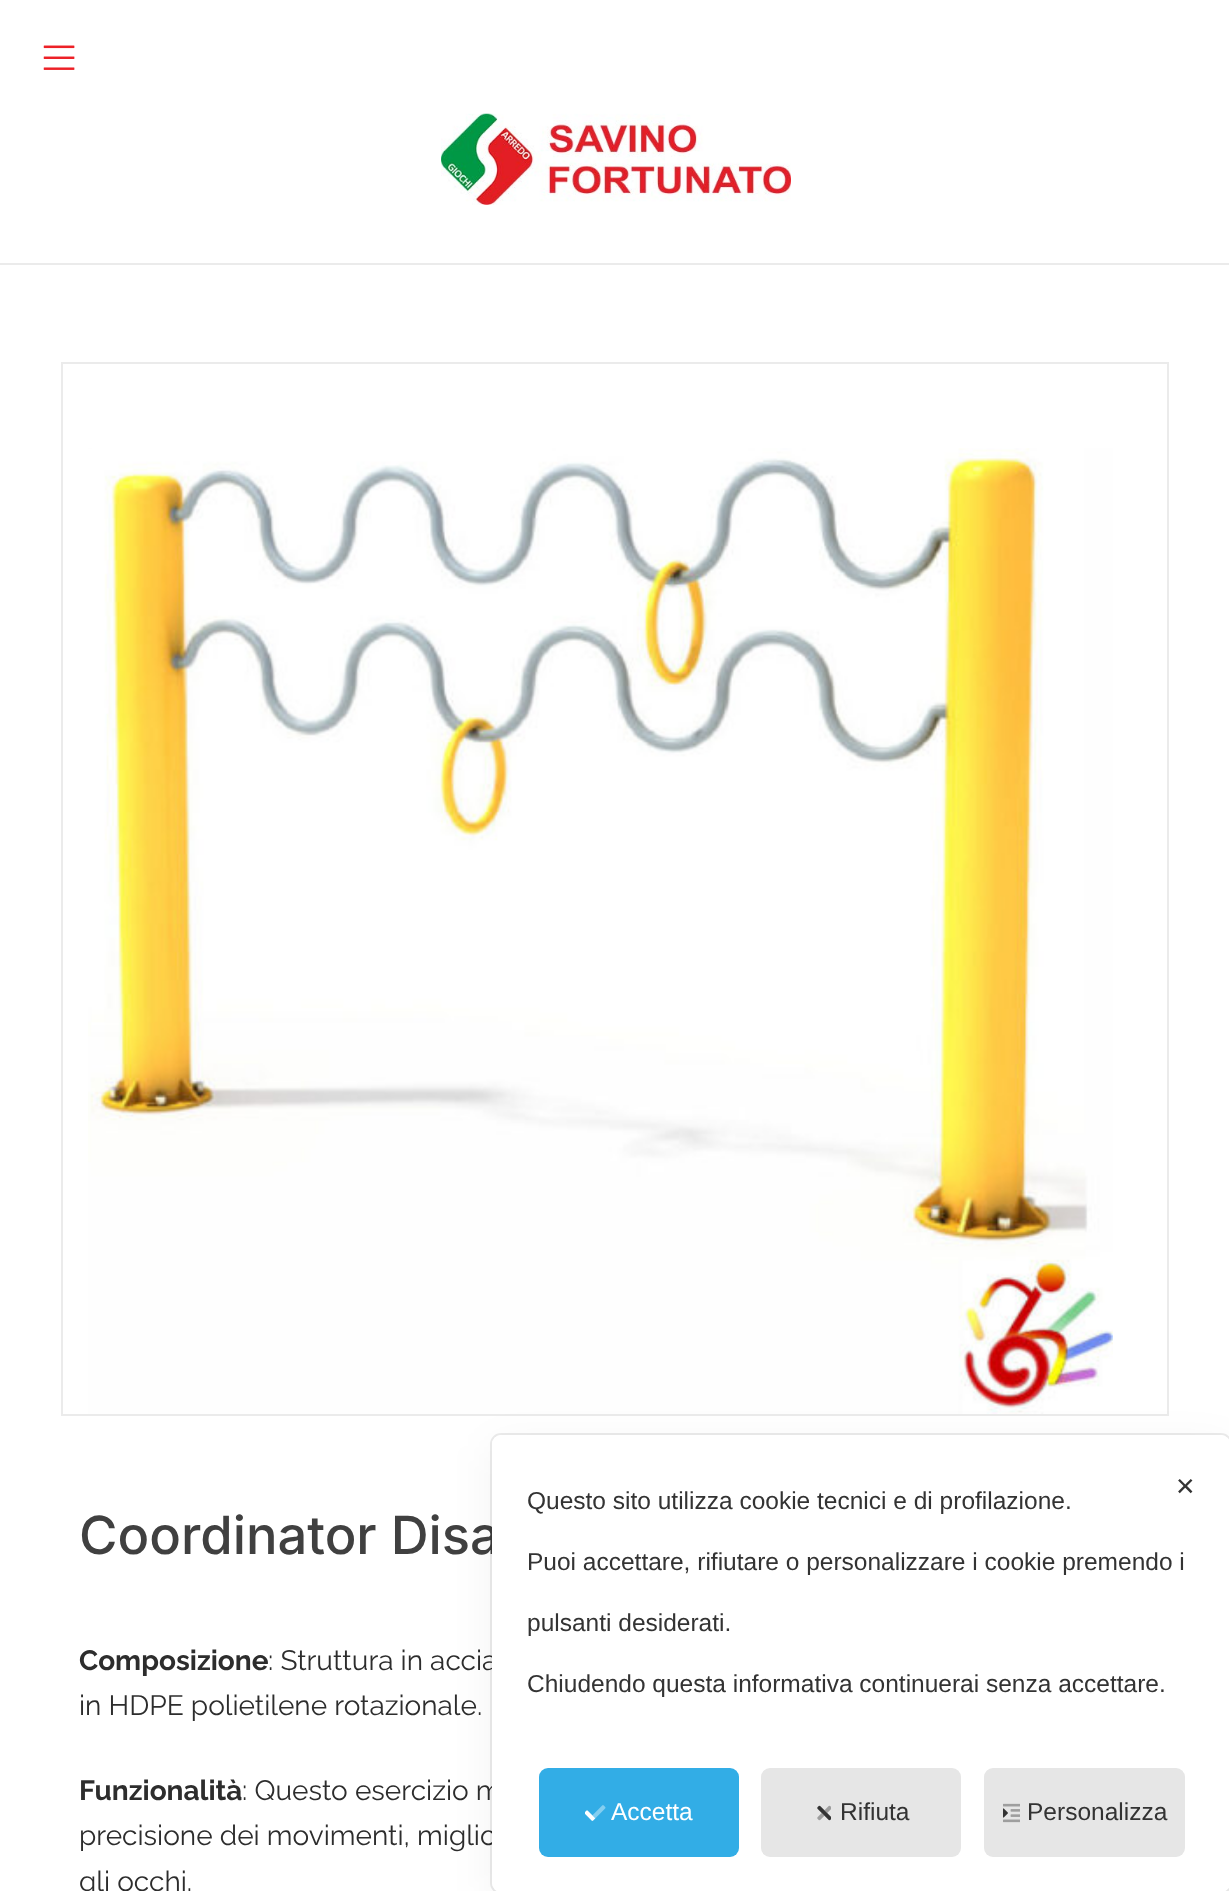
<svg xmlns="http://www.w3.org/2000/svg" width="1229" height="1891" viewBox="0 0 1229 1891">
  <rect width="100%" height="100%" fill="#fff"/>
  <path d="M0 263h1229v2H0z" fill="#ebebeb"/>
  <image x="43" y="45" width="32" height="25" href="img/1.png"/>
  <image x="441" y="113" width="350" height="92" href="img/2.png"/>
  <path d="M62 363h1106v1052H62z" fill="none" stroke="#ebebeb" stroke-width="2"/>
  <image x="88" y="448" width="1025" height="966" href="img/3.png"/>
  <text x="79" y="1554" font-family="Inter" font-size="52.5" font-weight="500" fill="#404040">Coordinator Disa</text>
  <text x="79" y="1670" font-family="Raleway" font-size="28" font-weight="bold" fill="#2d2d2d">Composizione</text>
  <g font-family="Raleway" font-size="28" fill="#2d2d2d">
    <text x="268" y="1670">: Struttura in accia</text>
    <text x="79" y="1715">in HDPE polietilene rotazionale.</text>
  </g>
  <text x="79" y="1800" font-family="Raleway" font-size="28" font-weight="bold" fill="#2d2d2d">Funzionalità</text>
  <g font-family="Raleway" font-size="28" fill="#2d2d2d">
    <text x="242" y="1800">: Questo esercizio m</text>
    <text x="79" y="1845">precisione dei movimenti, miglio</text>
    <text x="79" y="1891">gli occhi.</text>
  </g>
  <rect x="491" y="1434" width="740" height="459" rx="10" fill="none" stroke="#00000014" stroke-width="2"/>
  <rect x="492" y="1446" width="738" height="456" rx="9" fill="#0000000d" filter="blur(21px)"/>
  <rect x="492" y="1435" width="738" height="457" rx="9" fill="#fff"/>
  <text x="1175" y="1495" font-family="DejaVu Sans" font-size="24.5" fill="#333">✕</text>
  <g font-family="Liberation Sans" font-size="24.5" fill="#333">
    <text x="527" y="1509">Questo sito utilizza cookie tecnici e di profilazione.</text>
    <text x="527" y="1570">Puoi accettare, rifiutare o personalizzare i cookie premendo i</text>
    <text x="527" y="1631">pulsanti desiderati.</text>
    <text x="527" y="1692">Chiudendo questa informativa continuerai senza accettare.</text>
  </g>
  <rect x="539" y="1768" width="200" height="89" rx="9" fill="#32ade6"/>
  <image x="585" y="1805" width="21" height="16" href="img/4.png"/>
  <text x="611" y="1820" font-family="Liberation Sans" font-size="24.5" fill="#fff">Accetta</text>
  <rect x="761" y="1768" width="200" height="89" rx="9" fill="#e6e6e6"/>
  <image x="817" y="1805" width="14" height="16" href="img/5.png"/>
  <text x="840" y="1820" font-family="Liberation Sans" font-size="24.5" fill="#333">Rifiuta</text>
  <rect x="984" y="1768" width="201" height="89" rx="9" fill="#e6e6e6"/>
  <image x="1003" y="1803" width="17" height="20" href="img/6.png"/>
  <text x="1027" y="1820" font-family="Liberation Sans" font-size="24.5" fill="#333">Personalizza</text>
</svg>
